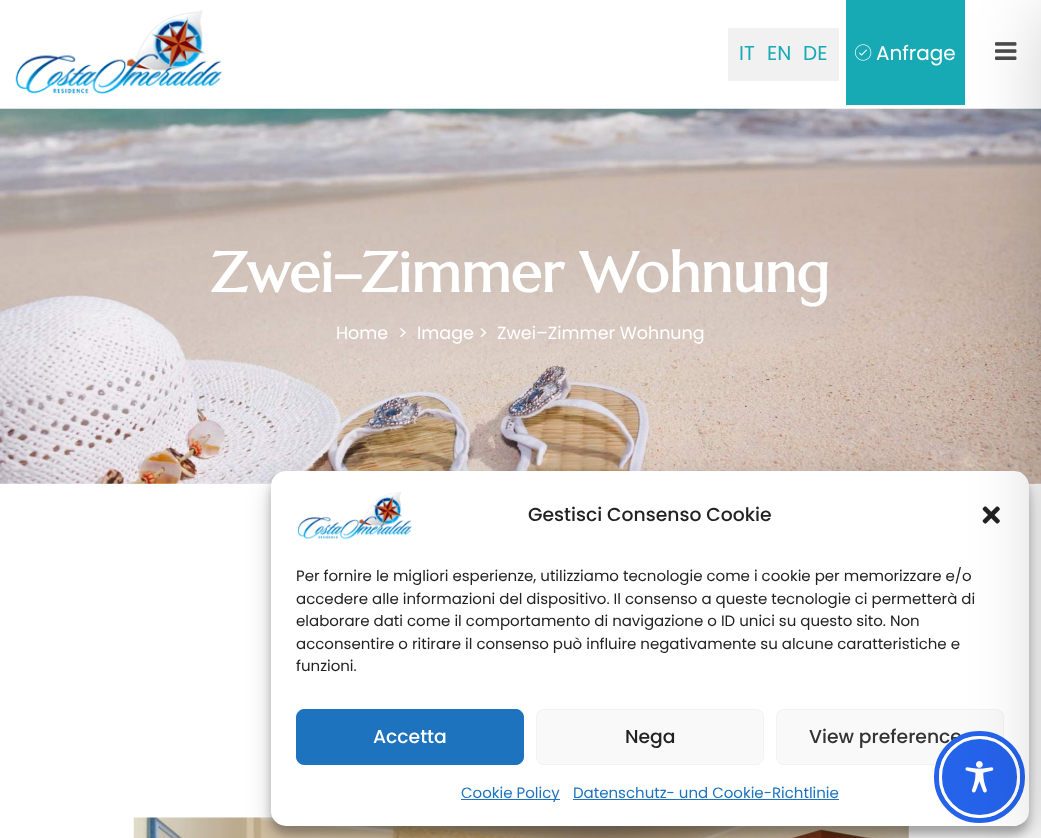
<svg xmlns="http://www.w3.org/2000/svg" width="1041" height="838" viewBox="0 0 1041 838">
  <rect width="100%" height="100%" fill="#fff"/>
  <image x="15" y="10" width="208" height="85" href="img/1.png"/>
  <path d="M728 28h111v53H728z" fill="#f1f1f1"/>
  <path d="M846 0h119v105H846z" fill="#17aab5"/>
  <image x="855" y="44" width="17" height="17" href="img/2.png"/>
  <image x="995" y="42" width="22" height="18" href="img/3.png"/>
  <image x="0" y="108" width="1041" height="376" href="img/4.png"/>
  <image x="133" y="817" width="776" height="21" href="img/5.png"/>
  <rect x="271" y="479" width="758" height="355" rx="15" fill="#0000003b" filter="blur(4px)"/>
  <rect x="271" y="484" width="758" height="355" rx="15" fill="#00000030" filter="blur(12.5px)"/>
  <rect x="271" y="471" width="758" height="355" rx="15" fill="#fff"/>
  <image x="297" y="492" width="115" height="48" href="img/6.png"/>
  <image x="982" y="506" width="18" height="18" href="img/7.png"/>
  <rect x="296.5" y="709.5" width="227" height="55" rx="7.5" fill="#1e73be" stroke="#1e73be"/>
  <rect x="536.5" y="709.5" width="227" height="55" rx="7.5" fill="#f9f9f9" stroke="#f2f2f2"/>
  <rect x="776.5" y="709.5" width="227" height="55" rx="7.5" fill="#f9f9f9" stroke="#f2f2f2"/>
  <path d="M461 799h99v1H461z" fill="#1e73be"/>
  <path d="M573 799h266v1H573z" fill="#1e73be"/>
  <g font-family="Poppins" font-size="20" fill="#17aab5">
    <text x="739" y="60">IT</text>
    <text x="767" y="60">EN</text>
    <text x="803" y="60">DE</text>
  </g>
  <text x="876" y="60" font-family="Poppins" font-size="20" fill="#fff">Anfrage</text>
  <text x="211" y="292" font-family="Marcellus" font-size="56.25" font-weight="bold" fill="#fff">Zwei–Zimmer Wohnung</text>
  <g font-family="Poppins" font-size="17.5" fill="#fff">
    <text x="336" y="339">Home</text>
    <text x="398" y="339">&gt;</text>
    <text x="417" y="339">Image &gt;</text>
    <text x="497" y="339">Zwei–Zimmer Wohnung</text>
  </g>
  <text x="528" y="521" font-family="Poppins" font-size="18.75" font-weight="500" fill="#222">Gestisci Consenso Cookie</text>
  <g font-family="Poppins" font-size="15" fill="#222">
    <text x="296" y="581">Per fornire le migliori esperienze, utilizziamo tecnologie come i cookie per memorizzare e/o</text>
    <text x="296" y="604">accedere alle informazioni del dispositivo. Il consenso a queste tecnologie ci permetterà di</text>
    <text x="296" y="626">elaborare dati come il comportamento di navigazione o ID unici su questo sito. Non</text>
    <text x="296" y="649">acconsentire o ritirare il consenso può influire negativamente su alcune caratteristiche e</text>
    <text x="296" y="671">funzioni.</text>
  </g>
  <text x="373" y="743" font-family="Poppins" font-size="18.75" font-weight="500" fill="#fff">Accetta</text>
  <text x="625" y="743" font-family="Poppins" font-size="18.75" font-weight="500" fill="#222">Nega</text>
  <text x="809" y="743" font-family="Poppins" font-size="18.75" font-weight="500" fill="#333">View preference</text>
  <g font-family="Poppins" font-size="15" fill="#1e73be">
    <text x="461" y="798">Cookie Policy</text>
    <text x="573" y="798">Datenschutz- und Cookie-Richtlinie</text>
  </g>
  <rect x="936.5" y="733.5" width="86" height="87" rx="43" fill="none" stroke="#2563eb" stroke-width="5"/>
  <rect x="940.5" y="737.5" width="78" height="79" rx="39" fill="#2563eb" stroke="#fff" stroke-width="3"/>
  <image x="965" y="761" width="29" height="32" href="img/8.png"/>
  <path d="M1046 13h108v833H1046z" fill="#00000033" filter="blur(37.5px)"/>
</svg>
